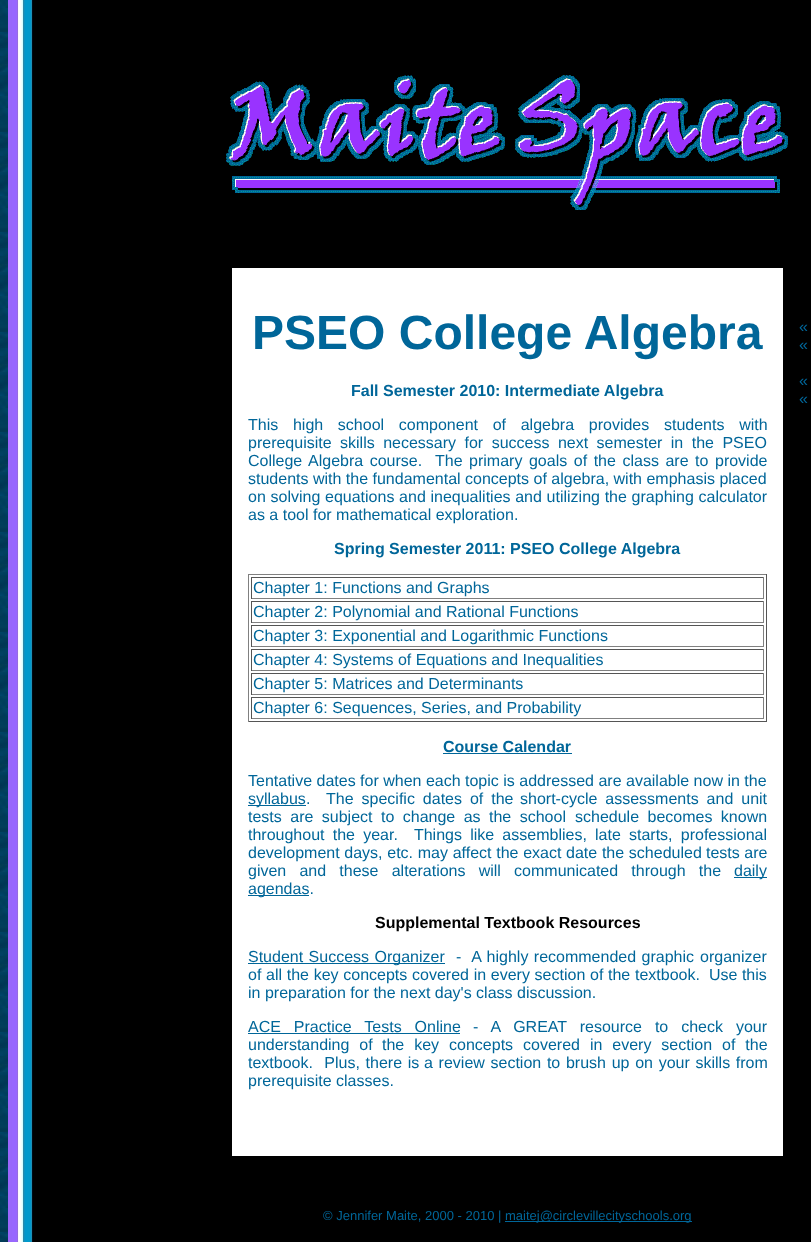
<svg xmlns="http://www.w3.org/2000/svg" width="811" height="1242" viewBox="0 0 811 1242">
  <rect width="100%" height="100%" fill="#fff"/>
  <image x="0" y="0" width="8" height="1242" href="img/1.png"/>
  <image x="8" y="0" width="803" height="1242" href="img/2.png"/>
  <image x="226" y="75" width="562" height="135" href="img/3.png"/>
  <path d="M232 268h551v888H232z" fill="#fff"/>
  <path d="M248 574h519v1H248z" fill="#808080"/>
  <path d="M766 574h1v148H766z" fill="#555"/>
  <path d="M248 721h519v1H248z" fill="#555"/>
  <path d="M248 574h1v148H248z" fill="#808080"/>
  <path d="M251 577h513v1H251z" fill="#555"/>
  <path d="M763 577h1v22H763z" fill="#808080"/>
  <path d="M251 598h513v1H251z" fill="#808080"/>
  <path d="M251 577h1v22H251z" fill="#555"/>
  <path d="M251 601h513v1H251z" fill="#555"/>
  <path d="M763 601h1v22H763z" fill="#808080"/>
  <path d="M251 622h513v1H251z" fill="#808080"/>
  <path d="M251 601h1v22H251z" fill="#555"/>
  <path d="M251 625h513v1H251z" fill="#555"/>
  <path d="M763 625h1v22H763z" fill="#808080"/>
  <path d="M251 646h513v1H251z" fill="#808080"/>
  <path d="M251 625h1v22H251z" fill="#555"/>
  <path d="M251 649h513v1H251z" fill="#555"/>
  <path d="M763 649h1v22H763z" fill="#808080"/>
  <path d="M251 670h513v1H251z" fill="#808080"/>
  <path d="M251 649h1v22H251z" fill="#555"/>
  <path d="M251 673h513v1H251z" fill="#555"/>
  <path d="M763 673h1v22H763z" fill="#808080"/>
  <path d="M251 694h513v1H251z" fill="#808080"/>
  <path d="M251 673h1v22H251z" fill="#555"/>
  <path d="M251 697h513v1H251z" fill="#555"/>
  <path d="M763 697h1v22H763z" fill="#808080"/>
  <path d="M251 718h513v1H251z" fill="#808080"/>
  <path d="M251 697h1v22H251z" fill="#555"/>
  <path d="M443 753h129v1H443z" fill="#069"/>
  <path d="M248 805h58v1H248z" fill="#069"/>
  <path d="M734 877h33v1H734z" fill="#069"/>
  <path d="M248 895h61v1H248z" fill="#069"/>
  <path d="M248 963h197v1H248z" fill="#069"/>
  <path d="M248 1033h212v1H248z" fill="#069"/>
  <path d="M505 1221h187v1H505z" fill="#069"/>
  <text x="252" y="349" font-family="Liberation Sans" font-size="48" font-weight="bold" fill="#069">PSEO College Algebra</text>
  <text x="351" y="396" font-family="Liberation Sans" font-size="16" font-weight="bold" fill="#069">Fall Semester 2010: Intermediate Algebra</text>
  <g font-family="Liberation Sans" font-size="16" fill="#069">
    <text x="248" y="430" word-spacing="10.25">This high school component of algebra provides students with</text>
    <text x="248" y="448" word-spacing="4">prerequisite skills necessary for success next semester in the PSEO</text>
    <text x="248" y="466">College</text>
    <text x="308" y="466" word-spacing="2.1" xml:space="preserve">Algebra course.  The primary goals of the class are to provide</text>
    <text x="248" y="484">students with the fundamental concepts of algebra, with emphasis placed</text>
    <text x="248" y="502" word-spacing="0.25">on solving equations and inequalities and utilizing the graphing calculator</text>
    <text x="248" y="520">as a tool for mathematical exploration.</text>
  </g>
  <text x="334" y="554" font-family="Liberation Sans" font-size="16" font-weight="bold" fill="#069">Spring Semester 2011: PSEO College Algebra</text>
  <g font-family="Liberation Sans" font-size="16" fill="#069">
    <text x="253" y="593">Chapter 1: Functions and Graphs</text>
    <text x="253" y="617">Chapter 2: Polynomial and Rational Functions</text>
    <text x="253" y="641">Chapter 3: Exponential and Logarithmic Functions</text>
    <text x="253" y="665">Chapter 4: Systems of Equations and Inequalities</text>
    <text x="253" y="689">Chapter 5: Matrices and Determinants</text>
    <text x="253" y="713">Chapter 6: Sequences, Series, and Probability</text>
  </g>
  <text x="443" y="752" font-family="Liberation Sans" font-size="16" font-weight="bold" fill="#069">Course Calendar</text>
  <g font-family="Liberation Sans" font-size="16" fill="#069">
    <text x="248" y="786">Tentative dates for when each topic is addressed are available now in the</text>
    <text x="248" y="804">syllabus</text>
    <text x="306" y="804" word-spacing="3.5" xml:space="preserve">.  The specific dates of the</text>
    <text x="520" y="804" word-spacing="3.5">short-cycle assessments and unit</text>
    <text x="248" y="822" word-spacing="4">tests are subject to change as the school</text>
    <text x="575" y="822" word-spacing="4">schedule becomes known</text>
    <text x="248" y="840" word-spacing="3.75" xml:space="preserve">throughout the year.  Things like assemblies, late</text>
    <text x="629" y="840" word-spacing="3.75">starts, professional</text>
    <text x="248" y="858" word-spacing="0.25">development days, etc. may affect the exact date the scheduled</text>
    <text x="706" y="858">tests are</text>
    <text x="248" y="876" word-spacing="8.75">given and these alterations will communicated through the</text>
    <text x="734" y="876">daily</text>
    <text x="248" y="894">agendas.</text>
  </g>
  <text x="375" y="928" font-family="Liberation Sans" font-size="16" font-weight="bold" fill="#000">Supplemental Textbook Resources</text>
  <g font-family="Liberation Sans" font-size="16" fill="#069">
    <text x="248" y="962" word-spacing="1">Student Success Organizer</text>
    <text x="456" y="962" word-spacing="1" xml:space="preserve">-  A highly recommended graphic</text>
    <text x="700" y="962">organizer</text>
    <text x="248" y="980" word-spacing="0.25">of all the key concepts covered in every section of the textbook.</text>
    <text x="709" y="980">Use this</text>
    <text x="248" y="998">in preparation for the next day's class discussion.</text>
    <text x="248" y="1032" word-spacing="8.5">ACE Practice Tests Online</text>
    <text x="473" y="1032" word-spacing="8.5">- A GREAT resource to check your</text>
    <text x="248" y="1050" word-spacing="5.5">understanding of</text>
    <text x="382" y="1050" word-spacing="5.5">the key concepts covered in every section of the</text>
    <text x="248" y="1068" word-spacing="1.25" xml:space="preserve">textbook.  Plus, there is</text>
    <text x="424" y="1068" word-spacing="1.25">a review section to brush up on your skills from</text>
    <text x="248" y="1086">prerequisite classes.</text>
    <text x="799" y="332">«</text>
    <text x="799" y="350">«</text>
    <text x="799" y="386">«</text>
    <text x="799" y="404">«</text>
  </g>
  <g font-family="Liberation Sans" font-size="13" fill="#069">
    <text x="323" y="1220">© Jennifer Maite, 2000 - 2010 |</text>
    <text x="505" y="1220">maitej@circlevillecityschools.org</text>
  </g>
</svg>
